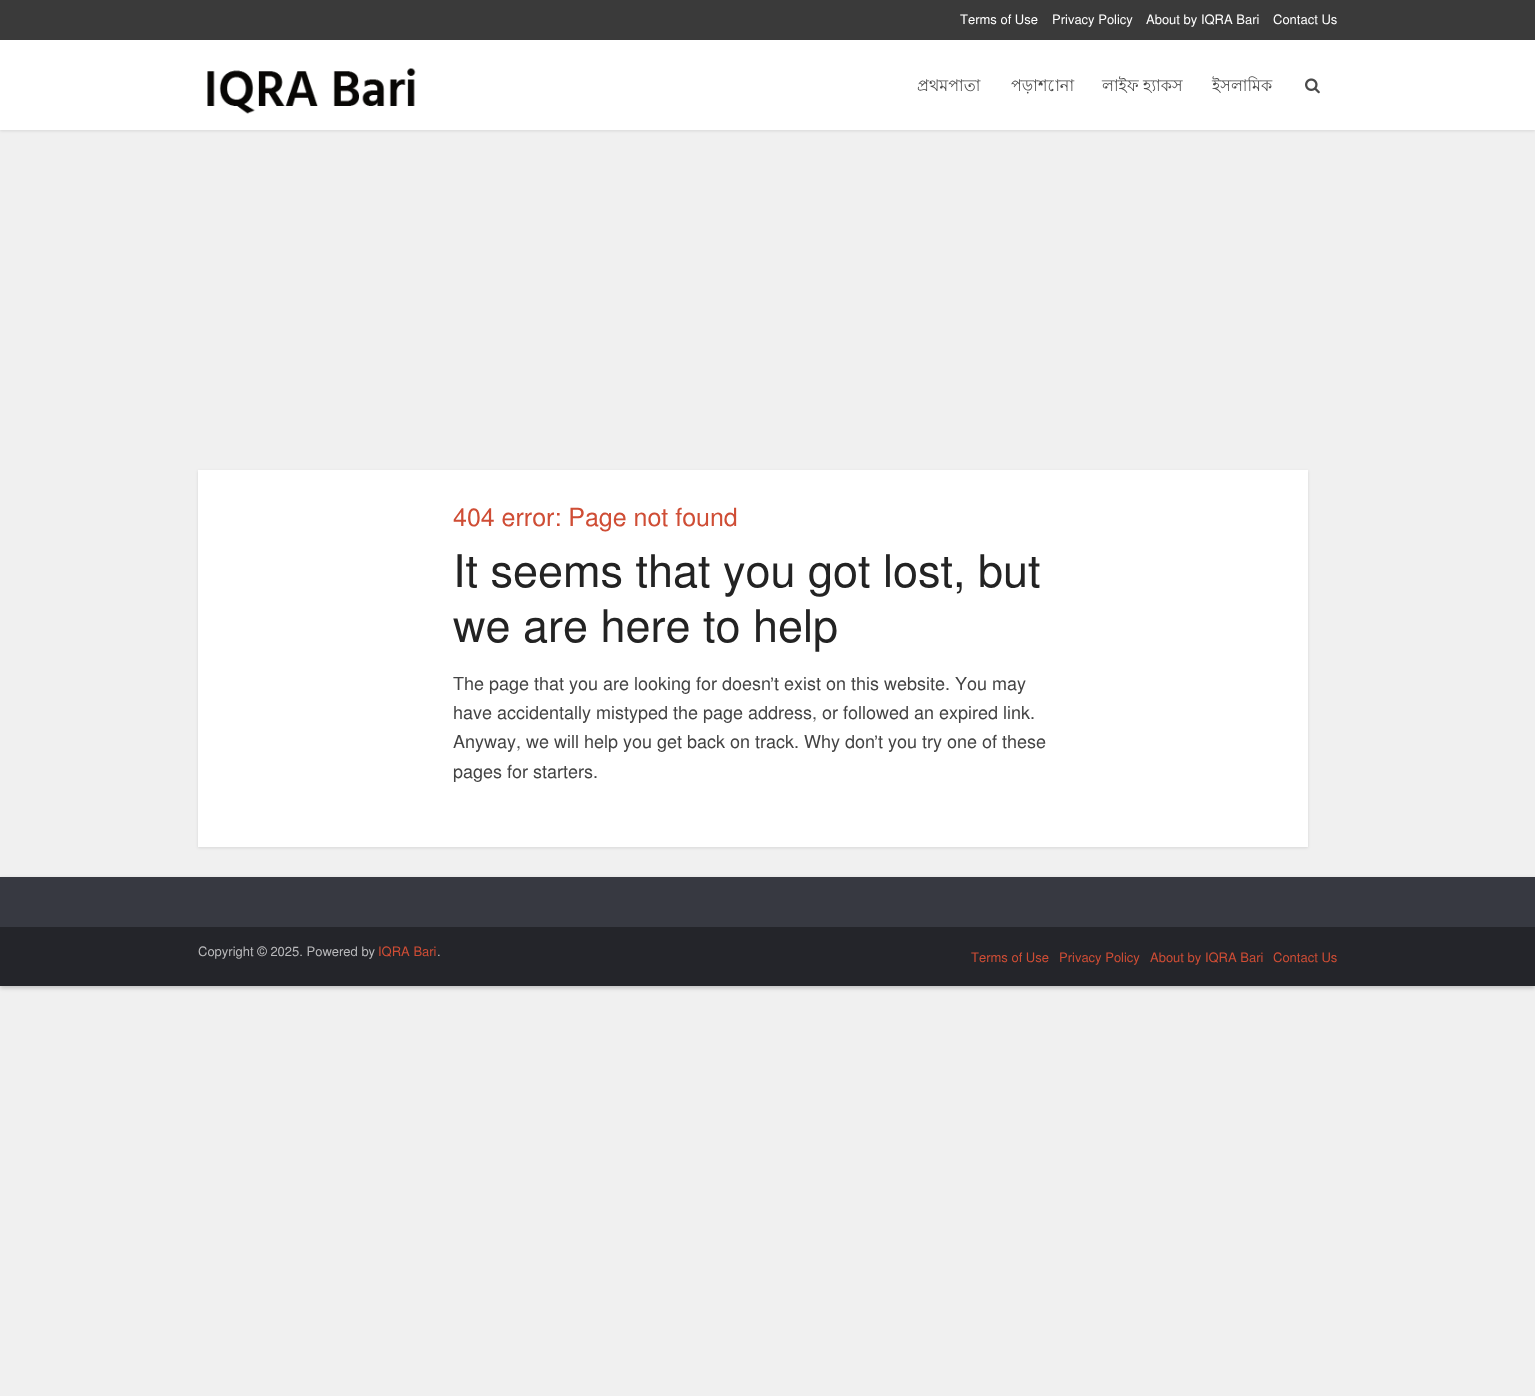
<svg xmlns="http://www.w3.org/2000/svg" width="1535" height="1396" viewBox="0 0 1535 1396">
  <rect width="100%" height="100%" fill="#f0f0f0"/>
  <path d="M0 1h1535v130H0z" fill="#0000001a" filter="blur(1.5px)"/>
  <path d="M0 40h1535v90H0z" fill="#fff"/>
  <path d="M0 0h1535v40H0z" fill="#3a3a3a"/>
  <image x="207" y="68" width="209" height="46" href="img/1.png"/>
  <image x="1305" y="78" width="15" height="16" href="img/2.png"/>
  <path d="M198 471h1110v377H198z" fill="#0000001a" filter="blur(1.5px)"/>
  <path d="M198 470h1110v377H198z" fill="#fff"/>
  <path d="M0 879h1535v109H0z" fill="#00000033" filter="blur(2px)"/>
  <path d="M0 877h1535v50H0z" fill="#373941"/>
  <path d="M0 927h1535v59H0z" fill="#24252a"/>
  <g font-family="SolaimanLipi" font-size="13" fill="#fff">
    <text x="960" y="24">Terms of Use</text>
    <text x="1052" y="24">Privacy Policy</text>
    <text x="1146" y="24">About by IQRA Bari</text>
    <text x="1273" y="24">Contact Us</text>
  </g>
  <g font-family="Lohit Bengali" font-size="16" fill="#4a4a4a">
    <text x="917" y="91">প্রথমপাতা</text>
    <text x="1011" y="91">পড়াশোনা</text>
    <text x="1102" y="91">লাইফ হ্যাকস</text>
    <text x="1212" y="91">ইসলামিক</text>
  </g>
  <text x="453" y="526" font-family="SolaimanLipi" font-size="25" fill="#cf4d35">404 error: Page not found</text>
  <g font-family="SolaimanLipi" font-size="45" fill="#232323">
    <text x="453" y="587">It seems that you got lost, but</text>
    <text x="453" y="642">we are here to help</text>
  </g>
  <text x="453" y="690" font-family="SolaimanLipi" font-size="18" fill="#444">The page that you are looking for doesn</text>
  <text x="770" y="690" font-family="Liberation Sans" font-size="18" fill="#444">’</text>
  <g font-family="SolaimanLipi" font-size="18" fill="#444">
    <text x="774" y="690">t exist on this website. You may</text>
    <text x="453" y="719">have accidentally mistyped the page address, or followed an expired link.</text>
    <text x="453" y="748">Anyway, we will help you get back on track. Why don</text>
  </g>
  <text x="874" y="748" font-family="Liberation Sans" font-size="18" fill="#444">’</text>
  <g font-family="SolaimanLipi" font-size="18" fill="#444">
    <text x="878" y="748">t you try one of these</text>
    <text x="453" y="778">pages for starters.</text>
  </g>
  <text x="198" y="956" font-family="SolaimanLipi" font-size="13" fill="#b9b9bb">Copyright © 2025. Powered by</text>
  <text x="378" y="956" font-family="SolaimanLipi" font-size="13" fill="#cf4d35">IQRA Bari</text>
  <text x="437" y="956" font-family="SolaimanLipi" font-size="13" fill="#b9b9bb">.</text>
  <g font-family="SolaimanLipi" font-size="13" fill="#cf4d35">
    <text x="971" y="962">Terms of Use</text>
    <text x="1059" y="962">Privacy Policy</text>
    <text x="1150" y="962">About by IQRA Bari</text>
    <text x="1273" y="962">Contact Us</text>
  </g>
</svg>
